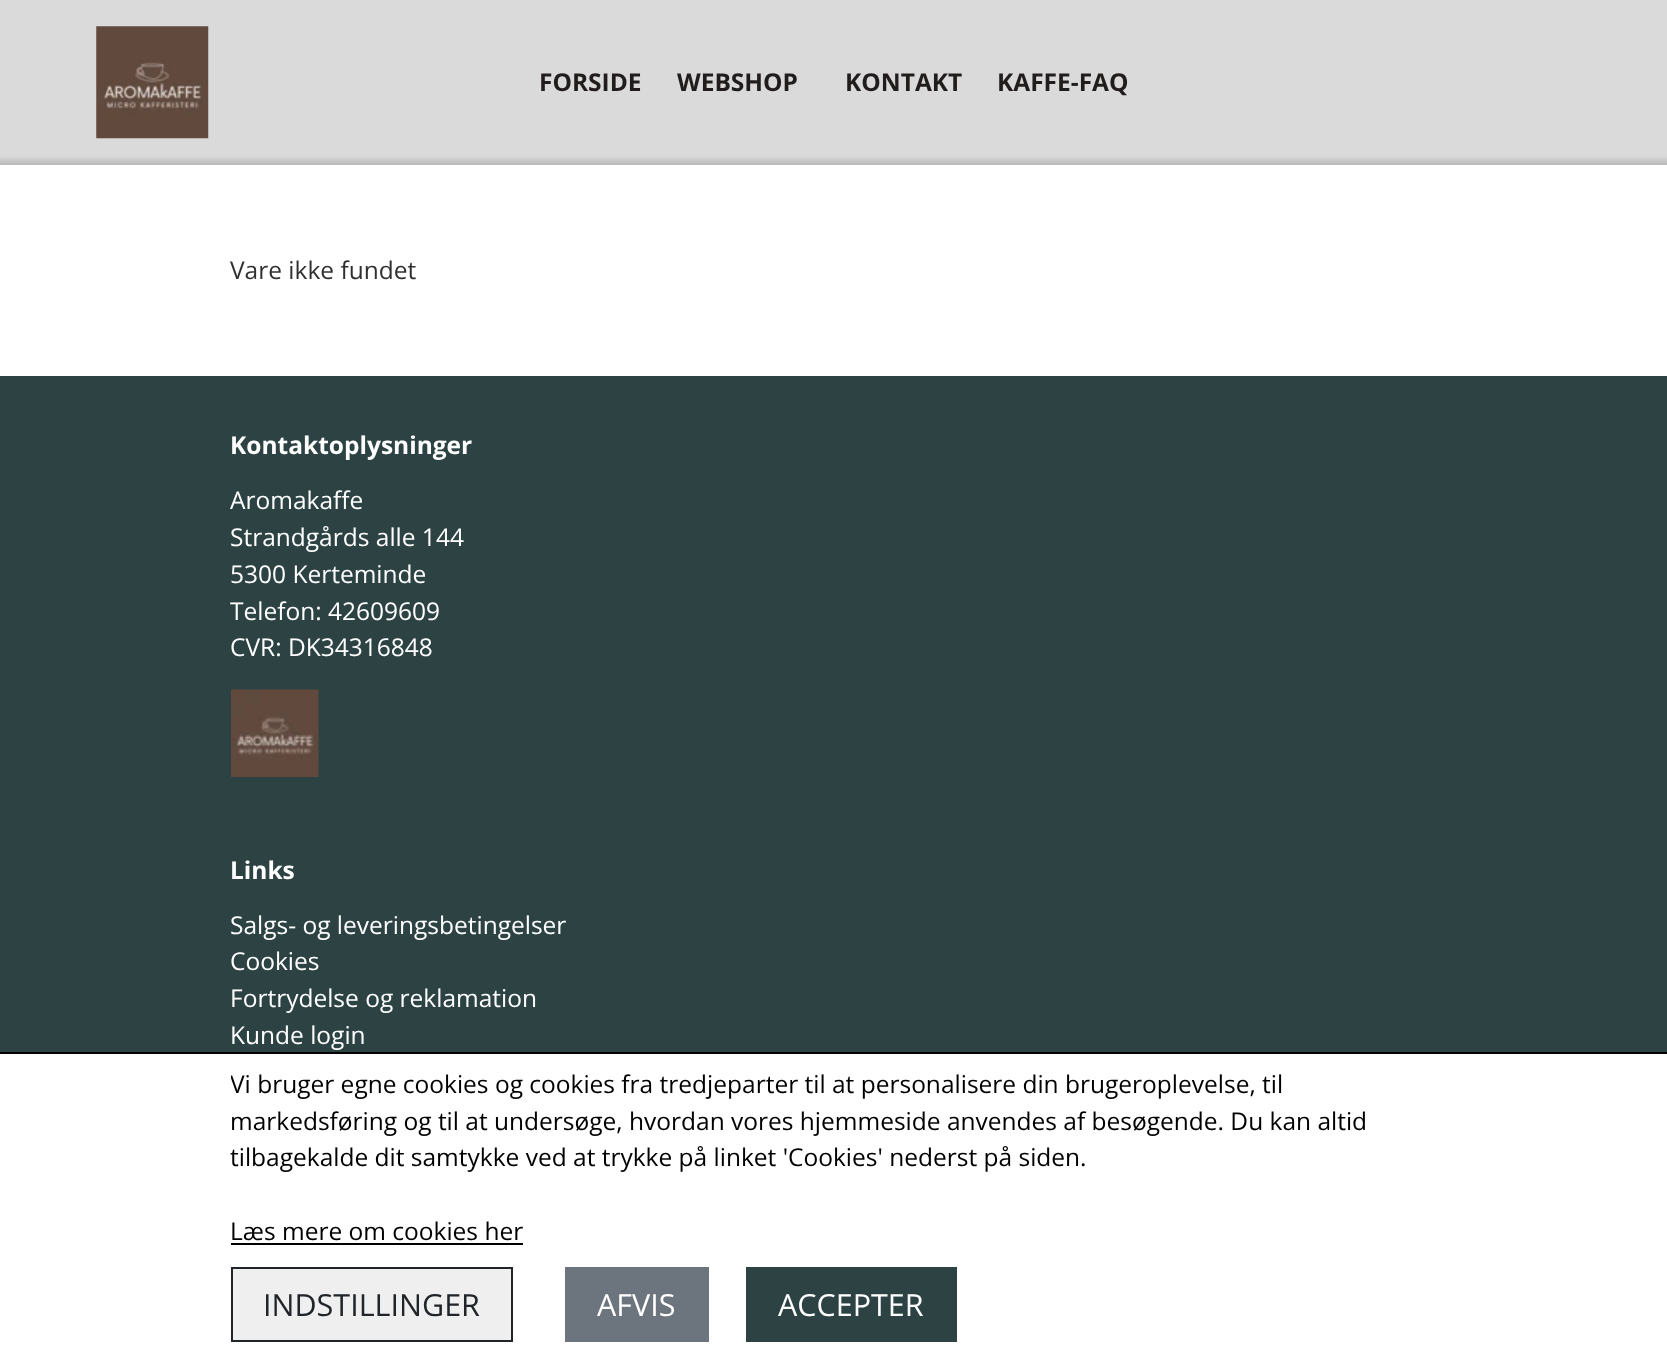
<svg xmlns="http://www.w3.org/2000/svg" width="1667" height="1353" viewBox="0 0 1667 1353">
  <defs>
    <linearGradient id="g1" gradientUnits="userSpaceOnUse" x1="834" y1="165" x2="834" y2="156"><stop offset="0" stop-color="#b9b9b9"/><stop offset="1" stop-color="#dadada"/></linearGradient>
    <clipPath id="clip1"><path d="M231 1066h1208v110H231z"/></clipPath>
  </defs>
  <rect width="100%" height="100%" fill="#2c4243"/>
  <path d="M0 0h1667v156H0z" fill="#dadada"/>
  <image x="96" y="26" width="113" height="113" href="img/1.png"/>
  <path d="M0 156h1667v9H0z" fill="url(#g1)"/>
  <path d="M0 165h1667v211H0z" fill="#fff"/>
  <image x="231" y="689" width="88" height="88" href="img/2.png"/>
  <path d="M0 1054h1667v299H0z" fill="#fff"/>
  <path d="M0 1052h1667v2H0z" fill="#000"/>
  <path d="M231 1243h292v2H231z" fill="#000"/>
  <path d="M232 1268h280v73H232z" fill="#efefef" stroke="#212529" stroke-width="2"/>
  <path d="M565 1267h144v75H565z" fill="#6c757d"/>
  <path d="M746 1267h211v75H746z" fill="#2c4243"/>
  <g font-family="Open Sans" font-size="24.5" font-weight="bold" fill="#211d1d">
    <text x="539" y="91">FORSIDE</text>
    <text x="677" y="91">WEBSHOP</text>
    <text x="845" y="91">KONTAKT</text>
    <text x="997" y="91">KAFFE-FAQ</text>
  </g>
  <text x="230" y="279" font-family="Open Sans" font-size="24.5" fill="#303030">Vare ikke fundet</text>
  <text x="230" y="454" font-family="Open Sans" font-size="24.5" font-weight="bold" fill="#fff">Kontaktoplysninger</text>
  <g font-family="Open Sans" font-size="24.5" fill="#fff">
    <text x="230" y="509">Aromakaffe</text>
    <text x="230" y="546">Strandgårds alle 144</text>
    <text x="230" y="583">5300 Kerteminde</text>
    <text x="230" y="620">Telefon: 42609609</text>
    <text x="230" y="656">CVR: DK34316848</text>
  </g>
  <text x="230" y="879" font-family="Open Sans" font-size="24.5" font-weight="bold" fill="#fff">Links</text>
  <g font-family="Open Sans" font-size="24.5" fill="#fff">
    <text x="230" y="934">Salgs- og leveringsbetingelser</text>
    <text x="230" y="970">Cookies</text>
    <text x="230" y="1007">Fortrydelse og reklamation</text>
    <text x="230" y="1044">Kunde login</text>
  </g>
  <g clip-path="url(#clip1)">
    <text x="230" y="1093" font-family="Open Sans" font-size="24.5" fill="#000">Vi bruger egne cookies og cookies fra tredjeparter til at personalisere din brugeroplevelse, til</text>
  </g>
  <g font-family="Open Sans" font-size="24.5" fill="#000">
    <text x="230" y="1130">markedsføring og til at undersøge, hvordan vores hjemmeside anvendes af besøgende. Du kan altid</text>
    <text x="230" y="1166">tilbagekalde dit samtykke ved at trykke på linket 'Cookies' nederst på siden.</text>
    <text x="230" y="1240">Læs mere om cookies her</text>
  </g>
  <text x="263" y="1316" font-family="Open Sans" font-size="30.5" fill="#212529">INDSTILLINGER</text>
  <g font-family="Open Sans" font-size="30.5" fill="#fff">
    <text x="597" y="1316">AFVIS</text>
    <text x="778" y="1316">ACCEPTER</text>
  </g>
</svg>
